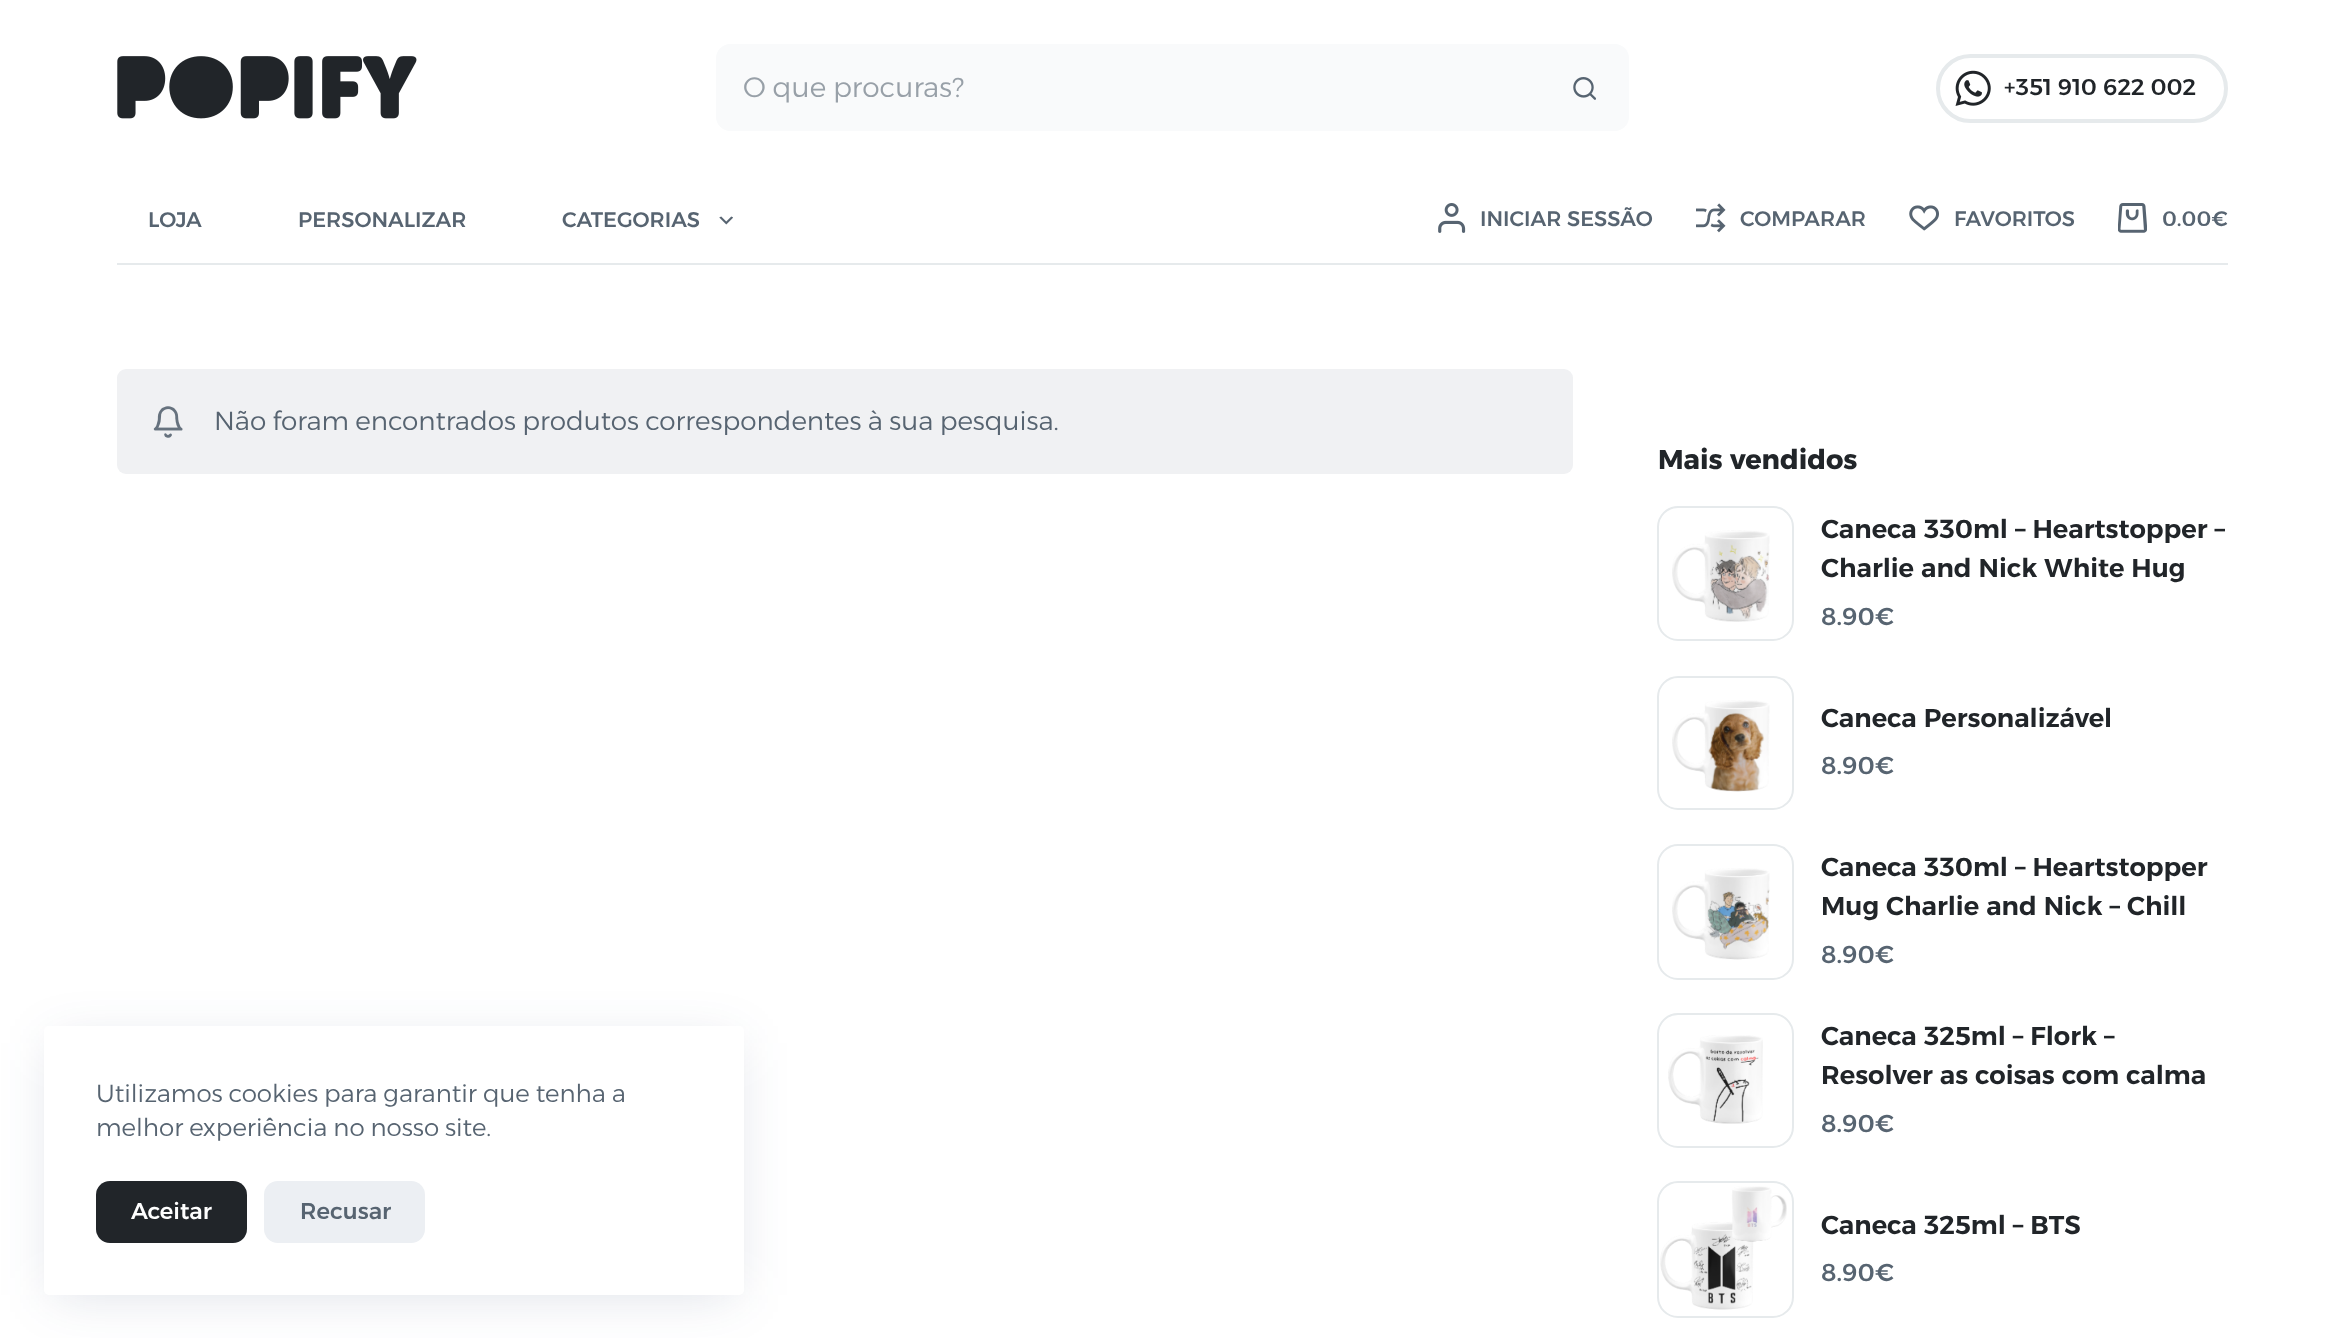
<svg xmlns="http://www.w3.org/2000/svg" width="2344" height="1338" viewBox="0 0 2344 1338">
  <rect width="100%" height="100%" fill="#fff"/>
  <image x="117" y="56" width="300" height="63" href="img/1.png"/>
  <path d="M730 44H1542V131H730C722.5 131 716 124.5 716 117V58C716 50.5 722.5 44 730 44Z" fill="#f9fafb"/>
  <path d="M1542 44H1615C1622.5 44 1629 50.5 1629 58V117C1629 124.5 1622.5 131 1615 131H1542Z" fill="#f9fafb"/>
  <image x="1573" y="77" width="23" height="23" href="img/2.png"/>
  <rect x="1938" y="56" width="288" height="65" rx="32.5" fill="none" stroke="#e6eaec" stroke-width="4"/>
  <image x="1955" y="70" width="36" height="36" href="img/3.png"/>
  <path d="M117 263h2111v2H117z" fill="#e6eaec"/>
  <image x="719" y="216" width="14" height="9" href="img/4.png"/>
  <image x="1438" y="203" width="28" height="30" href="img/5.png"/>
  <image x="1696" y="203" width="30" height="30" href="img/6.png"/>
  <image x="1909" y="205" width="30" height="26" href="img/7.png"/>
  <image x="2118" y="203" width="29" height="30" href="img/8.png"/>
  <rect x="117" y="369" width="1456" height="105" rx="9" fill="#f0f1f3"/>
  <image x="153" y="406" width="30" height="32" href="img/9.png"/>
  <rect x="1658" y="507" width="135" height="133" rx="20" fill="none" stroke="#e6eaec" stroke-width="2"/>
  <image x="1672" y="530" width="98" height="92" href="img/10.png"/>
  <rect x="1658" y="677" width="135" height="132" rx="20" fill="none" stroke="#e6eaec" stroke-width="2"/>
  <image x="1672" y="700" width="98" height="92" href="img/11.png"/>
  <rect x="1658" y="845" width="135" height="134" rx="20" fill="none" stroke="#e6eaec" stroke-width="2"/>
  <image x="1672" y="868" width="98" height="92" href="img/12.png"/>
  <rect x="1658" y="1014" width="135" height="133" rx="20" fill="none" stroke="#e6eaec" stroke-width="2"/>
  <image x="1668" y="1035" width="95" height="89" href="img/13.png"/>
  <rect x="1658" y="1182" width="135" height="135" rx="20" fill="none" stroke="#e6eaec" stroke-width="2"/>
  <image x="1660" y="1186" width="127" height="124" href="img/14.png"/>
  <path d="M53 1043h682v252H53z" fill="#22386526" filter="blur(26px)"/>
  <rect x="44" y="1026" width="700" height="269" rx="5" fill="#fff"/>
  <rect x="96" y="1181" width="151" height="62" rx="14" fill="#212529"/>
  <rect x="264" y="1181" width="161" height="62" rx="14" fill="#eceff3"/>
  <text x="743" y="97" font-family="Alexandria" font-size="28" font-weight="300" fill="#98a0a8">O que procuras?</text>
  <text x="2004" y="95" font-family="Alexandria" font-size="22.75" font-weight="500" fill="#212529">+351 910 622 002</text>
  <g font-family="Alexandria" font-size="21" font-weight="500" fill="#576471">
    <text x="148" y="227">LOJA</text>
    <text x="298" y="227">PERSONALIZAR</text>
    <text x="562" y="227">CATEGORIAS</text>
    <text x="1480" y="226">INICIAR SESSÃO</text>
    <text x="1740" y="226">COMPARAR</text>
    <text x="1954" y="226">FAVORITOS</text>
    <text x="2162" y="226">0.00€</text>
  </g>
  <text x="214" y="430" font-family="Alexandria" font-size="26.25" font-weight="300" fill="#576471">Não foram encontrados produtos correspondentes à sua pesquisa.</text>
  <text x="1658" y="469" font-family="Alexandria" font-size="27.25" font-weight="bold" fill="#212529">Mais vendidos</text>
  <g font-family="Alexandria" font-size="25.9" font-weight="600" fill="#212529">
    <text x="1821" y="538">Caneca 330ml – Heartstopper –</text>
    <text x="1821" y="577">Charlie and Nick White Hug</text>
  </g>
  <text x="1821" y="625" font-family="Alexandria" font-size="24.5" font-weight="500" fill="#576471">8.90€</text>
  <text x="1821" y="727" font-family="Alexandria" font-size="25.9" font-weight="600" fill="#212529">Caneca Personalizável</text>
  <text x="1821" y="774" font-family="Alexandria" font-size="24.5" font-weight="500" fill="#576471">8.90€</text>
  <g font-family="Alexandria" font-size="25.9" font-weight="600" fill="#212529">
    <text x="1821" y="876">Caneca 330ml – Heartstopper</text>
    <text x="1821" y="915">Mug Charlie and Nick – Chill</text>
  </g>
  <text x="1821" y="963" font-family="Alexandria" font-size="24.5" font-weight="500" fill="#576471">8.90€</text>
  <g font-family="Alexandria" font-size="25.9" font-weight="600" fill="#212529">
    <text x="1821" y="1045">Caneca 325ml – Flork –</text>
    <text x="1821" y="1084">Resolver as coisas com calma</text>
  </g>
  <text x="1821" y="1132" font-family="Alexandria" font-size="24.5" font-weight="500" fill="#576471">8.90€</text>
  <text x="1821" y="1234" font-family="Alexandria" font-size="25.9" font-weight="600" fill="#212529">Caneca 325ml – BTS</text>
  <text x="1821" y="1281" font-family="Alexandria" font-size="24.5" font-weight="500" fill="#576471">8.90€</text>
  <g font-family="Alexandria" font-size="24.5" font-weight="300" fill="#576471">
    <text x="96" y="1102">Utilizamos cookies para garantir que tenha a</text>
    <text x="96" y="1136">melhor experiência no nosso site.</text>
  </g>
  <text x="131" y="1219" font-family="Alexandria" font-size="22.75" font-weight="500" fill="#fff">Aceitar</text>
  <text x="300" y="1219" font-family="Alexandria" font-size="22.75" font-weight="500" fill="#576471">Recusar</text>
</svg>
